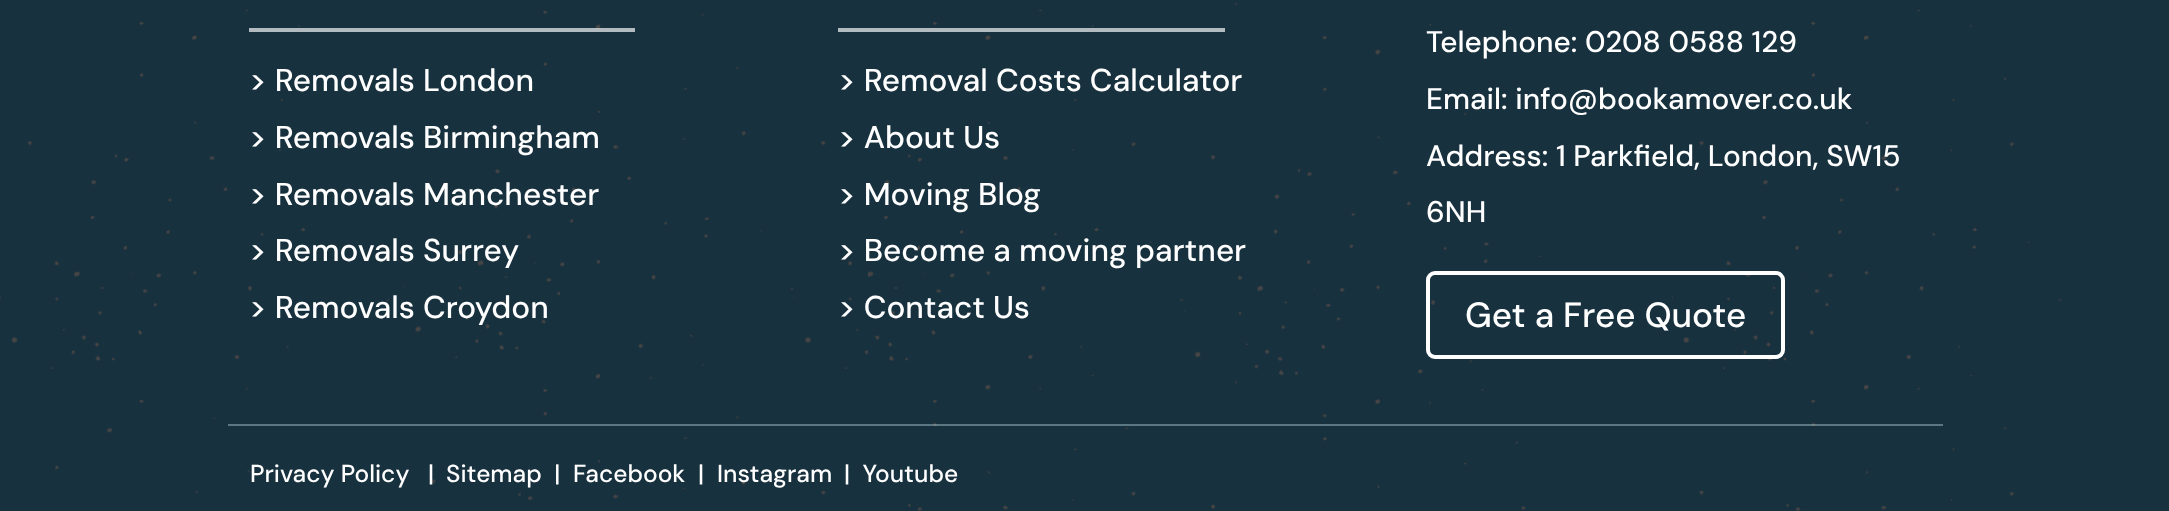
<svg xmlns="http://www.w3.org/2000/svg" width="2169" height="511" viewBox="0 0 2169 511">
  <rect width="100%" height="100%" fill="#fff"/>
  <image x="0" y="0" width="2169" height="511" href="img/1.png"/>
  <path d="M249 28h386v4H249z" fill="#ffffffab"/>
  <path d="M838 28h387v4H838z" fill="#b2bbbf"/>
  <rect x="1428" y="273" width="355" height="84" rx="7" fill="none" stroke="#fff" stroke-width="4"/>
  <path d="M228 424h1715v2H228z" fill="#c3e0e566"/>
  <g font-family="DM Sans" font-size="31.5" font-weight="500" fill="#fff">
    <text x="249" y="91">&gt; Removals London</text>
    <text x="249" y="148">&gt; Removals Birmingham</text>
    <text x="249" y="205">&gt; Removals Manchester</text>
    <text x="249" y="261">&gt; Removals Surrey</text>
    <text x="249" y="318">&gt; Removals Croydon</text>
    <text x="838" y="91">&gt; Removal Costs Calculator</text>
    <text x="838" y="148">&gt; About Us</text>
    <text x="838" y="205">&gt; Moving Blog</text>
    <text x="838" y="261">&gt; Become a moving partner</text>
    <text x="838" y="318">&gt; Contact Us</text>
  </g>
  <g font-family="DM Sans" font-size="29.75" font-weight="500" fill="#fff">
    <text x="1426" y="52">Telephone: 0208 0588 129</text>
    <text x="1426" y="109">Email: info@bookamover.co.uk</text>
    <text x="1426" y="166">Address: 1 Parkfield, London, SW15</text>
    <text x="1426" y="222">6NH</text>
  </g>
  <text x="1465" y="327" font-family="DM Sans" font-size="35" font-weight="500" fill="#fff">Get a Free Quote</text>
  <g font-family="DM Sans" font-size="24.5" font-weight="500" fill="#fff">
    <text x="250" y="482">Privacy Policy</text>
    <text x="428" y="482">|</text>
    <text x="446" y="482" xml:space="preserve">Sitemap  |</text>
    <text x="573" y="482">Facebook</text>
    <text x="698" y="482">|</text>
    <text x="717" y="482">Instagram</text>
    <text x="844" y="482" xml:space="preserve">|  Youtube</text>
  </g>
</svg>
